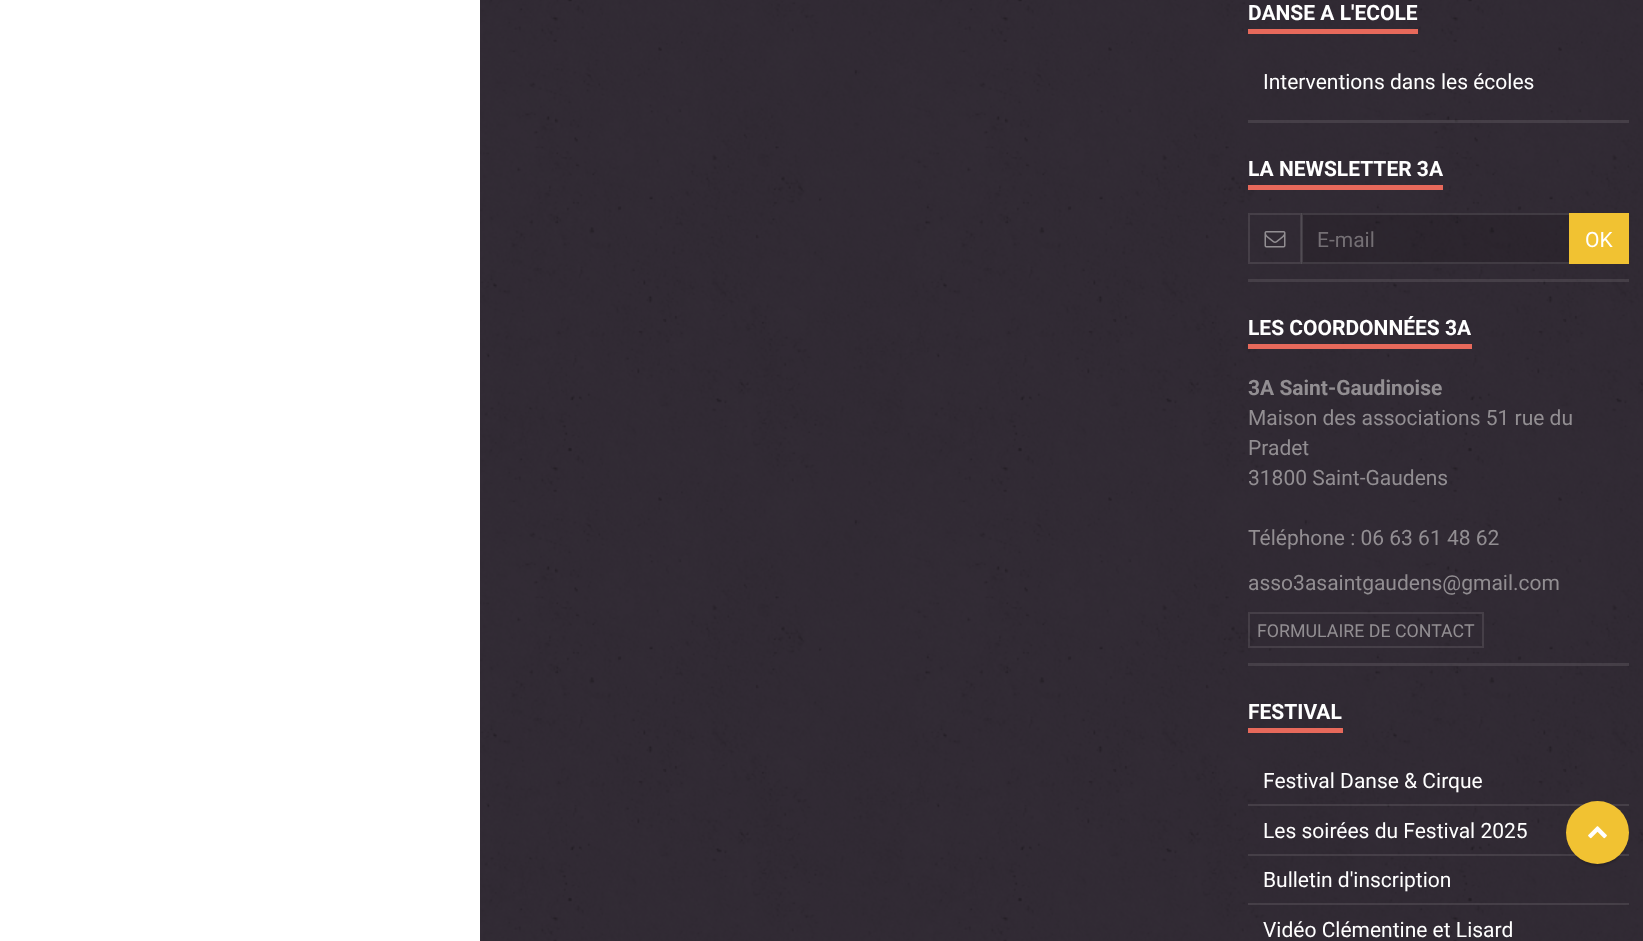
<svg xmlns="http://www.w3.org/2000/svg" width="1643" height="941" viewBox="0 0 1643 941">
  <rect width="100%" height="100%" fill="#39313c"/>
  <image x="480" y="0" width="1163" height="941" href="img/1.png"/>
  <path d="M0 0h480v941H0z" fill="#fff"/>
  <path d="M480 0h753v941H480z" fill="#0000001a"/>
  <path d="M1233 0h410v941H1233z" fill="#0000001a"/>
  <path d="M1248 29h170v5H1248z" fill="#e7695b"/>
  <path d="M1248 120h381v3H1248z" fill="#ffffff1a"/>
  <path d="M1248 185h195v5H1248z" fill="#e7695b"/>
  <path d="M1249 214h52v49H1249z" fill="none" stroke="#ffffff1a" stroke-width="2"/>
  <image x="1264" y="231" width="22" height="17" href="img/2.png"/>
  <path d="M1301 213h268v51H1301z" fill="#0000001a"/>
  <path d="M1302 214h268v49H1302z" fill="none" stroke="#ffffff1a" stroke-width="2"/>
  <path d="M1569 213h60v51H1569z" fill="#f1c232"/>
  <path d="M1248 279h381v3H1248z" fill="#ffffff1a"/>
  <path d="M1248 344h224v5H1248z" fill="#e7695b"/>
  <path d="M1249 613h234v34H1249z" fill="none" stroke="#ffffff1a" stroke-width="2"/>
  <path d="M1248 663h381v3H1248z" fill="#ffffff1a"/>
  <path d="M1248 728h95v5H1248z" fill="#e7695b"/>
  <path d="M1248 804h381v2H1248z" fill="#ffffff1a"/>
  <path d="M1248 854h381v2H1248z" fill="#ffffff1a"/>
  <path d="M1248 903h381v2H1248z" fill="#ffffff1a"/>
  <rect x="1569" y="809" width="57" height="57" rx="28.5" fill="#00000033" filter="blur(1px)"/>
  <circle cx="1597.5" cy="832.5" r="31.5" fill="#f1c232"/>
  <image x="1588" y="826" width="19" height="13" href="img/3.png"/>
  <text x="1248" y="20" font-family="Roboto" font-size="21" font-weight="bold" fill="#fff">DANSE A L'ECOLE</text>
  <text x="1263" y="89" font-family="Roboto" font-size="21" fill="#fff">Interventions dans les écoles</text>
  <text x="1248" y="176" font-family="Roboto" font-size="21" font-weight="bold" fill="#fff">LA NEWSLETTER 3A</text>
  <text x="1317" y="247" font-family="Roboto" font-size="21" fill="#746f74">E-mail</text>
  <text x="1585" y="247" font-family="Roboto" font-size="21" fill="#fff">OK</text>
  <text x="1248" y="335" font-family="Roboto" font-size="21" font-weight="bold" fill="#fff">LES COORDONNÉES 3A</text>
  <text x="1248" y="395" font-family="Roboto" font-size="21" font-weight="bold" fill="#928e92">3A Saint-Gaudinoise</text>
  <g font-family="Roboto" font-size="21" fill="#928e92">
    <text x="1248" y="425">Maison des associations 51 rue du</text>
    <text x="1248" y="455">Pradet</text>
    <text x="1248" y="485">31800 Saint-Gaudens</text>
    <text x="1248" y="545">Téléphone : 06 63 61 48 62</text>
    <text x="1248" y="590">asso3asaintgaudens@gmail.com</text>
  </g>
  <text x="1257" y="637" font-family="Roboto" font-size="17.8" fill="#928e92">FORMULAIRE DE CONTACT</text>
  <text x="1248" y="719" font-family="Roboto" font-size="21" font-weight="bold" fill="#fff">FESTIVAL</text>
  <g font-family="Roboto" font-size="21" fill="#fff">
    <text x="1263" y="788">Festival Danse &amp; Cirque</text>
    <text x="1263" y="838">Les soirées du Festival 2025</text>
    <text x="1263" y="887">Bulletin d'inscription</text>
    <text x="1263" y="937">Vidéo Clémentine et Lisard</text>
  </g>
</svg>
